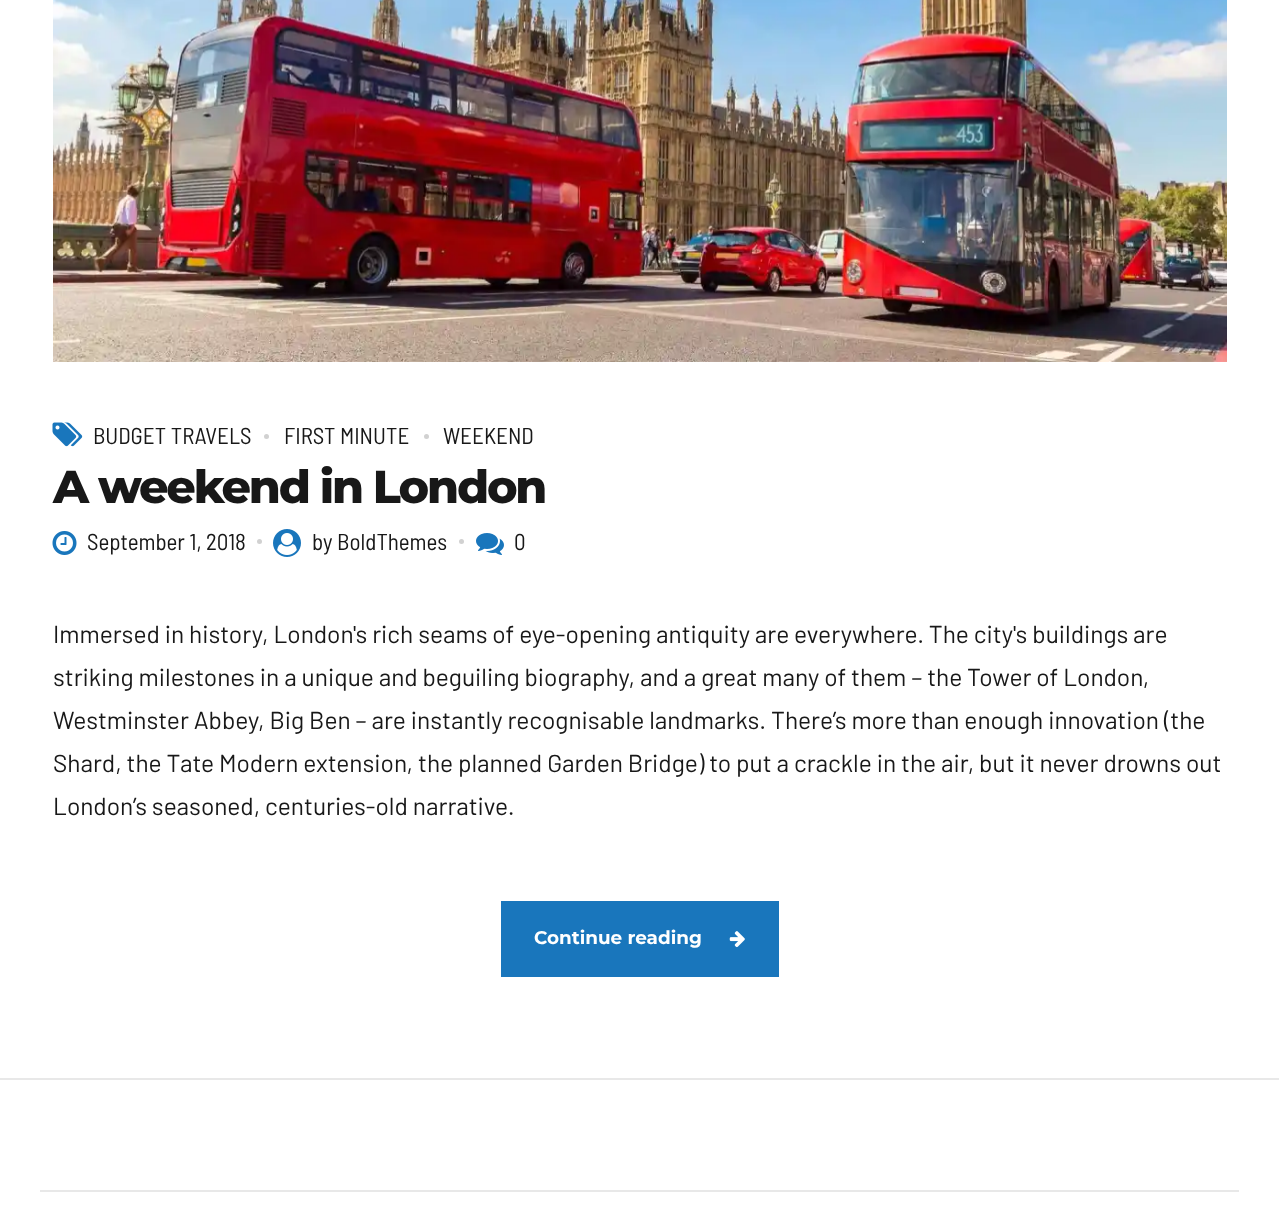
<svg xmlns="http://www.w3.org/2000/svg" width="1279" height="1212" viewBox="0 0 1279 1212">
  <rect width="100%" height="100%" fill="#fff"/>
  <path d="M0 1078h1279v2H0z" fill="#e8e8e8"/>
  <image x="53" y="0" width="1174" height="362" href="img/1.png"/>
  <image x="52" y="422" width="31" height="25" href="img/2.png"/>
  <circle cx="266.5" cy="436.5" r="2.5" fill="#d1d1d1"/>
  <circle cx="426.5" cy="436.5" r="2.5" fill="#d1d1d1"/>
  <image x="52" y="531" width="25" height="24" href="img/3.png"/>
  <circle cx="259.5" cy="541.5" r="2.5" fill="#d1d1d1"/>
  <image x="273" y="529" width="28" height="28" href="img/4.png"/>
  <circle cx="461.5" cy="541.5" r="2.5" fill="#d1d1d1"/>
  <image x="476" y="533" width="28" height="22" href="img/5.png"/>
  <path d="M501 901h278v76H501z" fill="#1976bc"/>
  <image x="729" y="931" width="16" height="17" href="img/6.png"/>
  <path d="M40 1190h1199v2H40z" fill="#e8e8e8"/>
  <g font-family="Barlow Semi Condensed" font-size="23" fill="#181818">
    <text x="93" y="444">BUDGET TRAVELS</text>
    <text x="284" y="444">FIRST MINUTE</text>
    <text x="443" y="444">WEEKEND</text>
  </g>
  <text x="53" y="503" font-family="Montserrat" font-size="46" font-weight="800" letter-spacing="-2.25" fill="#181818">A weekend in London</text>
  <g font-family="Barlow Semi Condensed" font-size="23" fill="#181818">
    <text x="87" y="550">September 1, 2018</text>
    <text x="312" y="550">by BoldThemes</text>
    <text x="514" y="550">0</text>
  </g>
  <g font-family="Barlow" font-size="24.5" fill="#181818">
    <text x="53" y="643">Immersed in history, London's rich seams of eye-opening antiquity are everywhere. The city's buildings are</text>
    <text x="53" y="686">striking milestones in a unique and beguiling biography, and a great many of them – the Tower of London,</text>
    <text x="53" y="729">Westminster Abbey, Big Ben – are instantly recognisable landmarks. There’s more than enough innovation (the</text>
    <text x="53" y="772">Shard, the Tate Modern extension, the planned Garden Bridge) to put a crackle in the air, but it never drowns out</text>
    <text x="53" y="815">London’s seasoned, centuries-old narrative.</text>
  </g>
  <text x="534" y="944" font-family="Montserrat" font-size="18.4" font-weight="bold" fill="#fff">Continue reading</text>
</svg>
